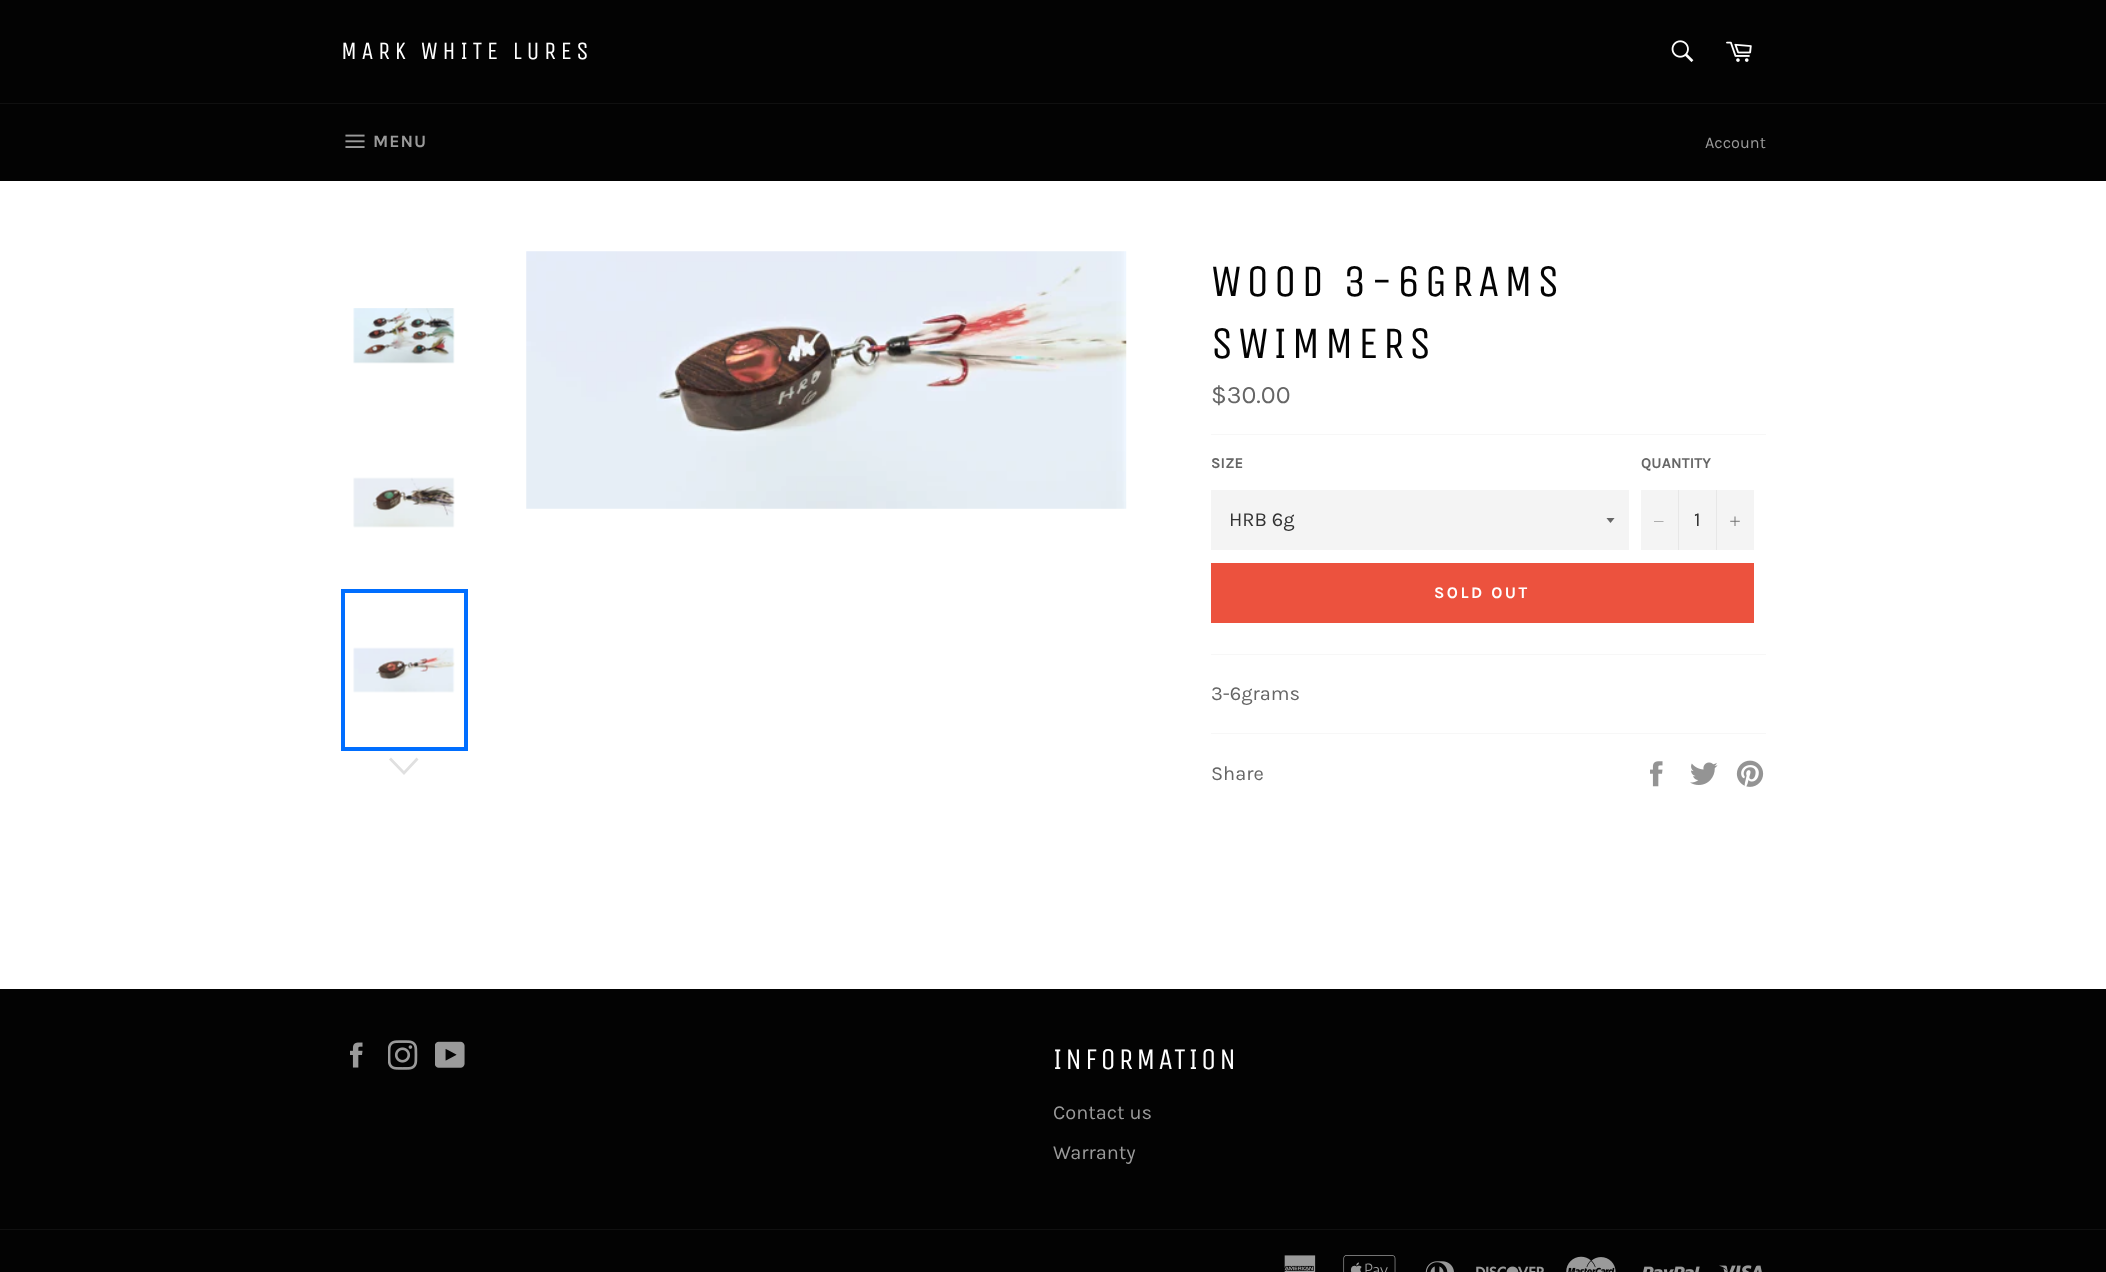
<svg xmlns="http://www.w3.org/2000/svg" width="2106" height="1272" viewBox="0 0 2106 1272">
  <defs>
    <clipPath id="clip1"><path d="M1606 518h10v6H1606z"/></clipPath>
  </defs>
  <rect width="100%" height="100%" fill="#030303"/>
  <image x="1671" y="40" width="23" height="22" href="img/1.png"/>
  <image x="1726" y="41" width="26" height="21" href="img/2.png"/>
  <path d="M0 103h2106v1H0z" fill="#101010"/>
  <image x="345" y="134" width="20" height="14" href="img/3.png"/>
  <path d="M0 181h2106v808H0z" fill="#fff"/>
  <image x="353" y="308" width="102" height="56" href="img/4.png"/>
  <image x="353" y="477" width="102" height="51" href="img/5.png"/>
  <image x="353" y="647" width="102" height="46" href="img/6.png"/>
  <path d="M343 591h123v158H343z" fill="none" stroke="#006eff" stroke-width="4"/>
  <path d="M416.5 757.5L418.5 759.5L404 775L389 759.5L391 757.5L404 771Z" fill="#e0e0e0"/>
  <image x="526" y="251" width="601" height="258" href="img/7.png"/>
  <path d="M1211 434h555v1H1211z" fill="#f7f7f7"/>
  <path d="M1211 490h418v60H1211z" fill="#f4f4f4"/>
  <g clip-path="url(#clip1)">
    <path d="M1606 517.5L1610.5 523L1615 517.5Z" fill="#666"/>
  </g>
  <path d="M1641 490h113v60H1641z" fill="#f4f4f4"/>
  <path d="M1678 490h1v60H1678z" fill="#e7e7e7"/>
  <path d="M1663.5 521V521.5H1654V521Z" fill="#666" fill-rule="evenodd"/>
  <path d="M1716 490h1v60H1716z" fill="#e7e7e7"/>
  <image x="1730" y="516" width="10" height="10" href="img/8.png"/>
  <path d="M1211 563h543v60H1211z" fill="#ec523e"/>
  <path d="M1211 654h555v1H1211z" fill="#f7f7f7"/>
  <path d="M1211 733h555v1H1211z" fill="#f7f7f7"/>
  <image x="1650" y="761" width="13" height="26" href="img/9.png"/>
  <image x="1690" y="762" width="28" height="23" href="img/10.png"/>
  <image x="1736" y="760" width="28" height="27" href="img/11.png"/>
  <image x="350" y="1042" width="13" height="26" href="img/12.png"/>
  <image x="388" y="1040" width="30" height="30" href="img/13.png"/>
  <image x="435" y="1041" width="30" height="27" href="img/14.png"/>
  <path d="M0 1229h2106v1H0z" fill="#101010"/>
  <image x="1284" y="1255" width="32" height="17" href="img/15.png"/>
  <image x="1343" y="1255" width="53" height="17" href="img/16.png"/>
  <image x="1425" y="1261" width="29" height="11" href="img/17.png"/>
  <image x="1476" y="1266" width="68" height="6" href="img/18.png"/>
  <image x="1566" y="1256" width="50" height="16" href="img/19.png"/>
  <image x="1643" y="1266" width="57" height="6" href="img/20.png"/>
  <image x="1719" y="1265" width="43" height="7" href="img/21.png"/>
  <text x="341" y="59" font-family="Unica One" font-size="25" letter-spacing="4.5" fill="#fff">MARK WHITE LURES</text>
  <text x="373" y="147" font-family="Karla" font-size="17.5" font-weight="bold" letter-spacing="1" fill="#9a9a9a">MENU</text>
  <text x="1705" y="148" font-family="Karla" font-size="16.25" fill="#9a9a9a">Account</text>
  <g font-family="Unica One" font-size="45" letter-spacing="4.5" fill="#030303">
    <text x="1211" y="296">WOOD 3-6GRAMS</text>
    <text x="1211" y="358">SWIMMERS</text>
  </g>
  <text x="1211" y="403" font-family="Karla" font-size="25" fill="#666">$30.00</text>
  <text x="1211" y="468" font-family="Karla" font-size="15" font-weight="bold" fill="#666">SIZE</text>
  <text x="1229" y="526" font-family="Karla" font-size="20" fill="#333">HRB 6g</text>
  <text x="1641" y="468" font-family="Karla" font-size="15" font-weight="bold" fill="#666">QUANTITY</text>
  <text x="1694" y="526" font-family="Karla" font-size="20" fill="#333">1</text>
  <text x="1434" y="598" font-family="Karla" font-size="16.25" font-weight="bold" letter-spacing="2.5" fill="#fff">SOLD OUT</text>
  <g font-family="Karla" font-size="20" fill="#666">
    <text x="1211" y="700">3-6grams</text>
    <text x="1211" y="780">Share</text>
  </g>
  <text x="1053" y="1069" font-family="Unica One" font-size="30" letter-spacing="3" fill="#fff">INFORMATION</text>
  <g font-family="Karla" font-size="20" fill="#9a9a9a">
    <text x="1053" y="1119">Contact us</text>
    <text x="1053" y="1159">Warranty</text>
  </g>
</svg>
